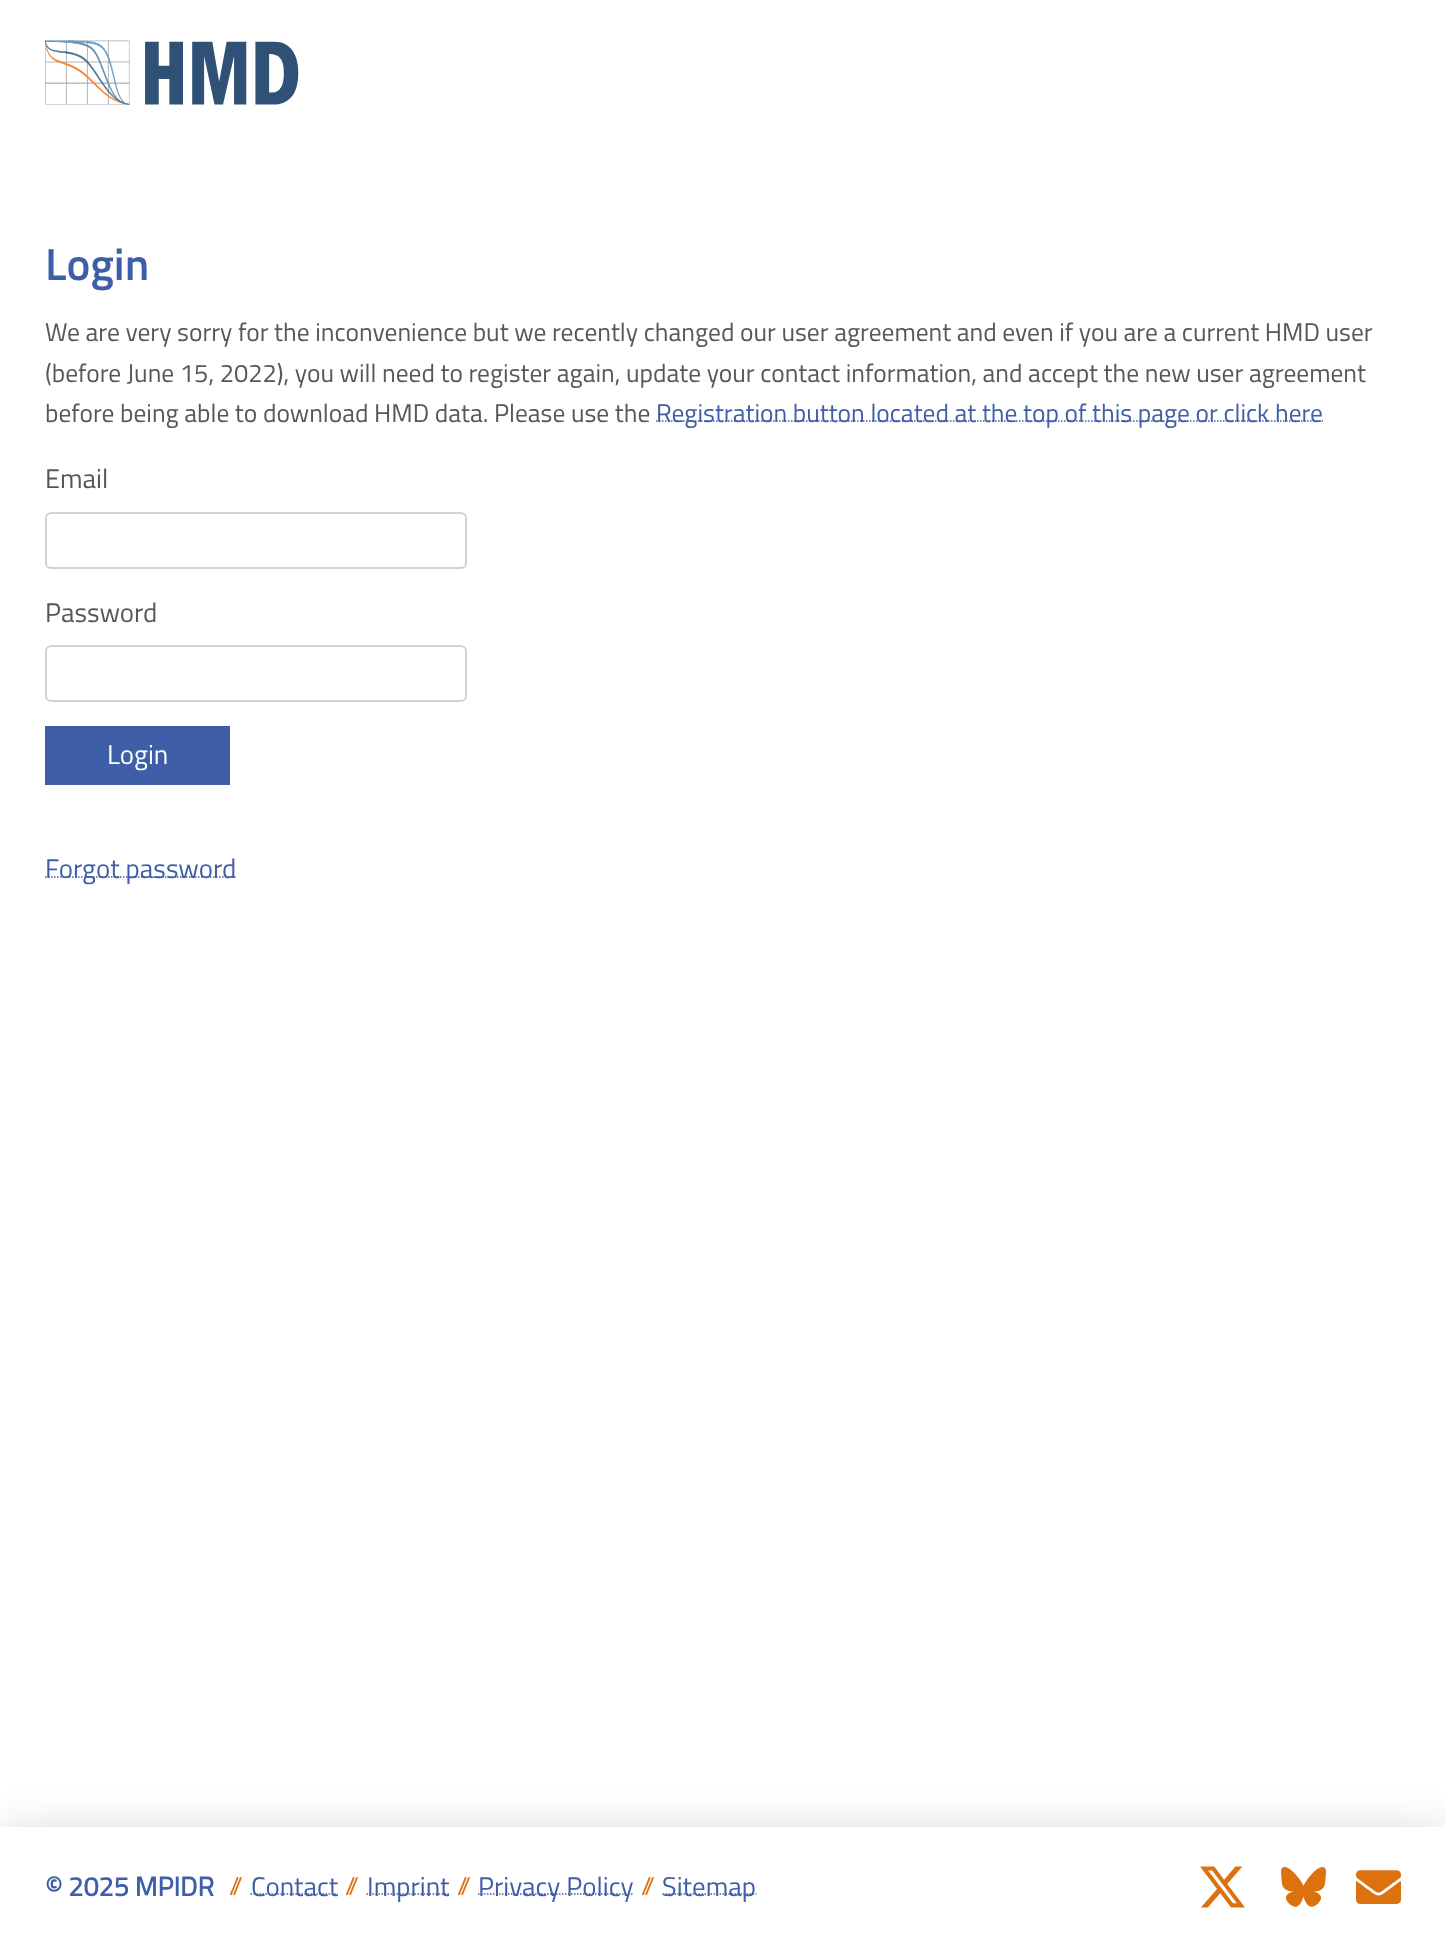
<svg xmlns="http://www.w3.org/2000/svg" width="1446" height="1947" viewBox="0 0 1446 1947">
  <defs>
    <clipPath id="clip1"><path d="M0 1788h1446v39H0z"/></clipPath>
  </defs>
  <rect width="100%" height="100%" fill="#fff"/>
  <image x="45" y="40" width="254" height="65" href="img/1.png"/>
  <path d="M656 421H1323" fill="none" stroke="#3f5ea8" stroke-width="1.5" stroke-dasharray="1.5 1.5"/>
  <rect x="46" y="513" width="420" height="55" rx="5" fill="none" stroke="#ced4da" stroke-width="2"/>
  <rect x="46" y="646" width="420" height="55" rx="5" fill="none" stroke="#ced4da" stroke-width="2"/>
  <path d="M45 726h185v59H45z" fill="#3f5ea8"/>
  <path d="M45 877H236.5" fill="none" stroke="#3f5ea8" stroke-width="1.5" stroke-dasharray="1.5 1.5"/>
  <g clip-path="url(#clip1)">
    <path d="M0 1827h1446v120H0z" fill="#ddd" filter="blur(19px)"/>
  </g>
  <path d="M250.5 1894H338" fill="none" stroke="#3f5ea8" stroke-width="1.5" stroke-dasharray="1.5 1.5"/>
  <path d="M366.5 1894H449.5" fill="none" stroke="#3f5ea8" stroke-width="1.5" stroke-dasharray="1.5 1.5"/>
  <path d="M478 1894H633.5" fill="none" stroke="#3f5ea8" stroke-width="1.5" stroke-dasharray="1.5 1.5"/>
  <path d="M662.5 1894H756.5" fill="none" stroke="#3f5ea8" stroke-width="1.5" stroke-dasharray="1.5 1.5"/>
  <image x="1200" y="1866" width="45" height="42" href="img/2.png"/>
  <image x="1281" y="1867" width="45" height="40" href="img/3.png"/>
  <image x="1356" y="1870" width="45" height="34" href="img/4.png"/>
  <text x="45" y="280" font-family="Titillium Web" font-size="45" font-weight="600" fill="#3f5ea8">Login</text>
  <g font-family="Titillium Web" font-size="25.5" fill="#565756">
    <text x="45" y="341">We are very sorry for the inconvenience but we recently changed our user agreement and even if you are a current HMD user</text>
    <text x="45" y="382">(before June 15, 2022), you will need to register again, update your contact information, and accept the new user agreement</text>
    <text x="45" y="422">before being able to download HMD data. Please use the</text>
  </g>
  <text x="656" y="422" font-family="Titillium Web" font-size="25.5" fill="#3f5ea8">Registration button located at the top of this page or click here</text>
  <g font-family="Titillium Web" font-size="27" fill="#565756">
    <text x="45" y="488">Email</text>
    <text x="45" y="622">Password</text>
  </g>
  <text x="107" y="764" font-family="Titillium Web" font-size="27" fill="#fff">Login</text>
  <text x="45" y="878" font-family="Titillium Web" font-size="27" fill="#3f5ea8">Forgot password</text>
  <text x="45" y="1896" font-family="Titillium Web" font-size="27" font-weight="bold" fill="#3f5ea8">© 2025 MPIDR</text>
  <text x="229" y="1895" font-family="Titillium Web" font-size="25.5" fill="#db720f">//</text>
  <text x="251" y="1896" font-family="Titillium Web" font-size="27" fill="#3f5ea8">Contact</text>
  <text x="345" y="1895" font-family="Titillium Web" font-size="25.5" fill="#db720f">//</text>
  <text x="367" y="1896" font-family="Titillium Web" font-size="27" fill="#3f5ea8">Imprint</text>
  <text x="457" y="1895" font-family="Titillium Web" font-size="25.5" fill="#db720f">//</text>
  <text x="478" y="1896" font-family="Titillium Web" font-size="27" fill="#3f5ea8">Privacy Policy</text>
  <text x="641" y="1895" font-family="Titillium Web" font-size="25.5" fill="#db720f">//</text>
  <text x="662" y="1896" font-family="Titillium Web" font-size="27" fill="#3f5ea8">Sitemap</text>
</svg>
